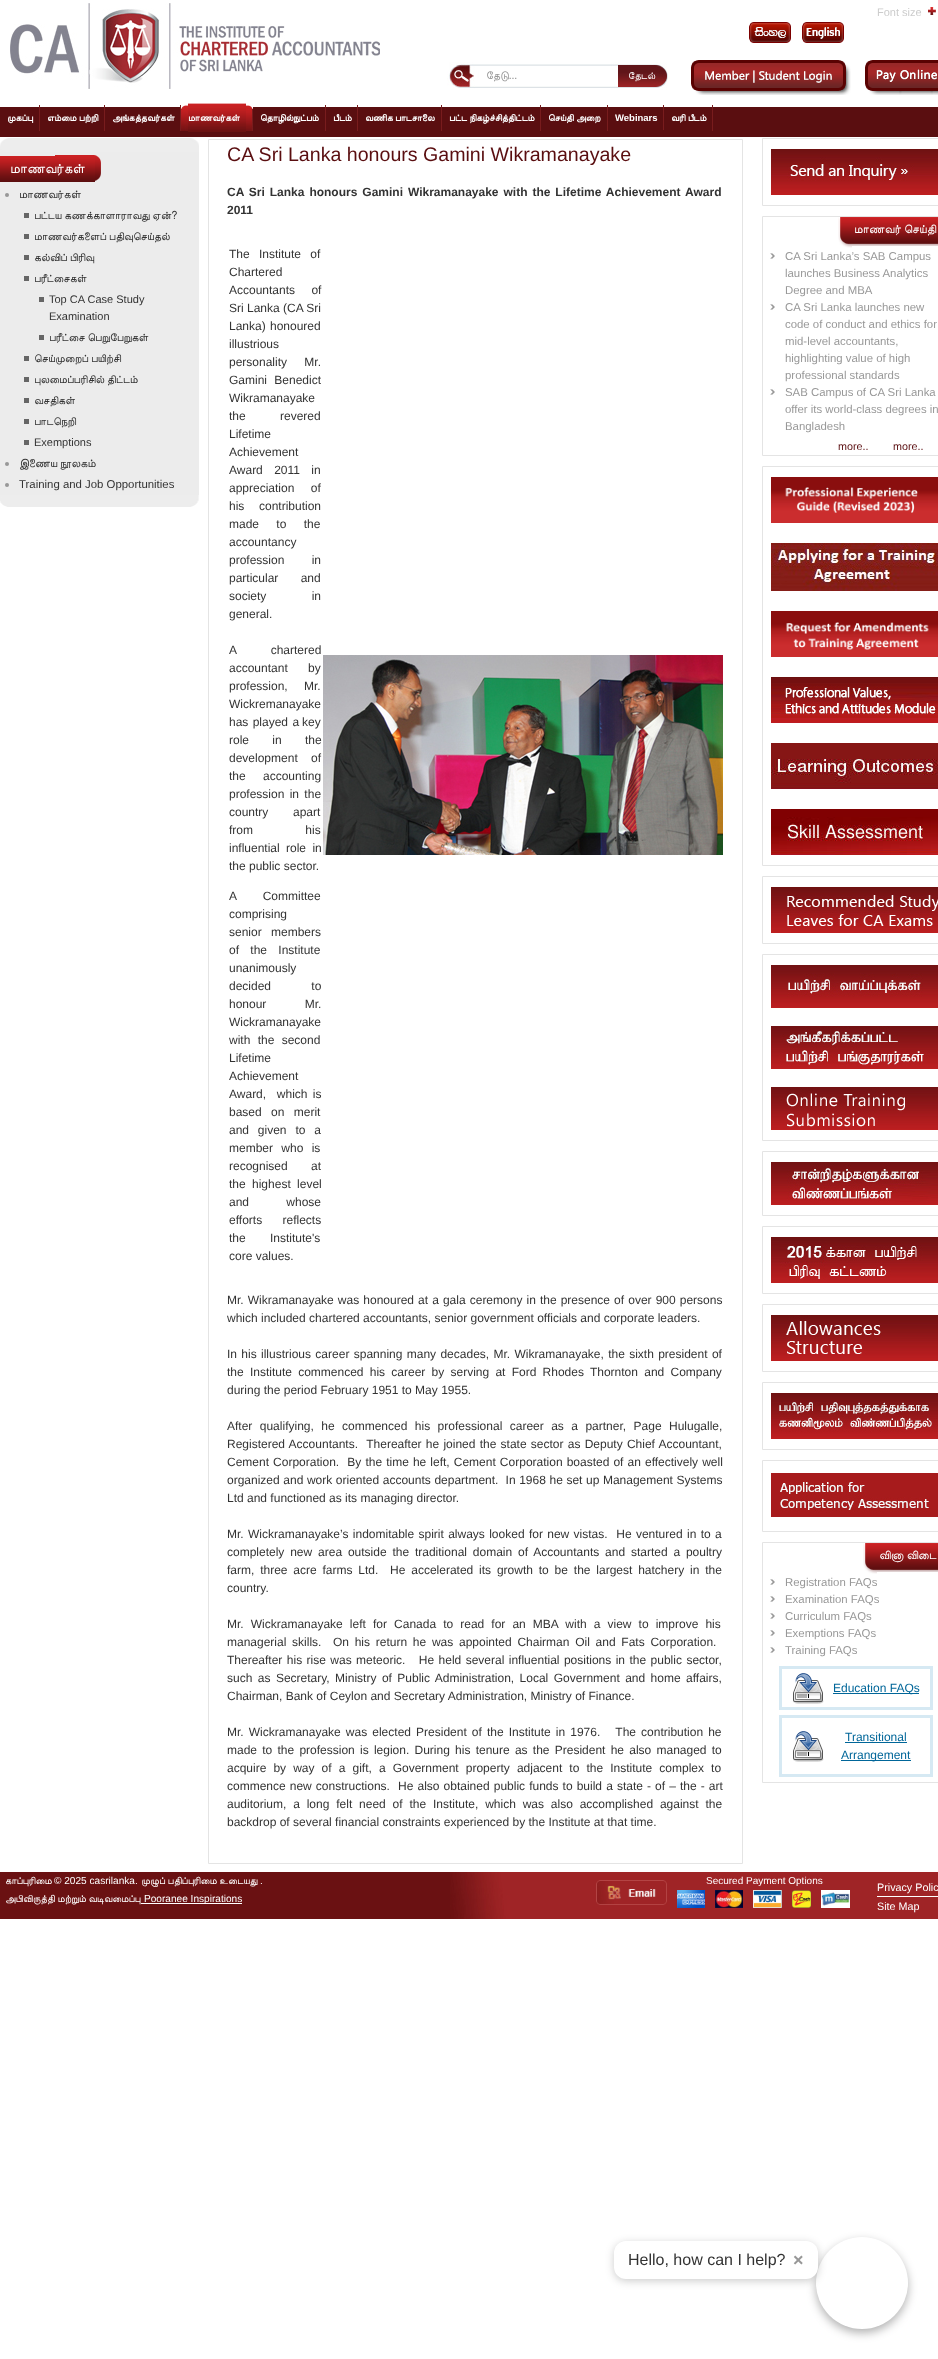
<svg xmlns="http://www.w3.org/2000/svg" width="938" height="2359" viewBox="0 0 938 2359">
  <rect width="100%" height="100%" fill="#fff"/>
  <path d="M0 107h938v30H0z" fill="#5a0e10"/>
  <image x="10" y="3" width="370" height="86" href="img/1.png"/>
  <image x="928" y="7" width="8" height="8" href="img/2.png"/>
  <image x="749" y="22" width="42" height="21" href="img/3.png"/>
  <image x="802" y="22" width="42" height="21" href="img/4.png"/>
  <image x="447" y="62" width="221" height="28" href="img/5.png"/>
  <image x="691" y="60" width="160" height="35" href="img/6.png"/>
  <image x="865" y="60" width="73" height="35" href="img/7.png"/>
  <path d="M39 105h1v26H39z" fill="#781c1d"/>
  <path d="M104 105h1v26H104z" fill="#781c1d"/>
  <path d="M180 105h1v26H180z" fill="#781c1d"/>
  <image x="246" y="105" width="7" height="26" href="img/8.png"/>
  <image x="181" y="105" width="7" height="26" href="img/9.png"/>
  <image x="188" y="103" width="58" height="29" href="img/10.png"/>
  <path d="M325 105h1v26H325z" fill="#781c1d"/>
  <path d="M357 105h1v26H357z" fill="#781c1d"/>
  <path d="M441 105h1v26H441z" fill="#781c1d"/>
  <path d="M540 105h1v26H540z" fill="#781c1d"/>
  <path d="M607 105h1v26H607z" fill="#781c1d"/>
  <path d="M663 105h1v25H663z" fill="#781c1d"/>
  <path d="M712 105h1v26H712z" fill="#781c1d"/>
  <image x="0" y="138" width="199" height="14" href="img/11.png"/>
  <image x="0" y="495" width="199" height="12" href="img/12.png"/>
  <path d="M0 152h199v343H0z" fill="#ececec"/>
  <image x="55" y="155" width="46" height="26" href="img/13.png"/>
  <image x="0" y="156" width="95" height="26" href="img/14.png"/>
  <circle cx="7" cy="195" r="2" fill="#989898"/>
  <path d="M24 213h5v5H24z" fill="#666"/>
  <path d="M24 234h5v5H24z" fill="#666"/>
  <path d="M24 255h5v5H24z" fill="#666"/>
  <path d="M24 276h5v5H24z" fill="#666"/>
  <path d="M39 297h5v5H39z" fill="#666"/>
  <path d="M39 335h5v5H39z" fill="#666"/>
  <path d="M24 356h5v5H24z" fill="#666"/>
  <path d="M24 377h5v5H24z" fill="#666"/>
  <path d="M24 398h5v5H24z" fill="#666"/>
  <path d="M24 419h5v5H24z" fill="#666"/>
  <path d="M24 440h5v5H24z" fill="#666"/>
  <circle cx="7" cy="464" r="2" fill="#989898"/>
  <circle cx="7" cy="485" r="2" fill="#989898"/>
  <path d="M208.5 139.5h534v1724H208.5z" fill="none" stroke="#e4e4e4"/>
  <image x="323" y="655" width="400" height="200" href="img/15.png"/>
  <rect x="816" y="2241" width="92" height="92" rx="46" fill="#0000004d" filter="blur(5px)"/>
  <circle cx="862" cy="2283" r="46" fill="#fff"/>
  <rect x="614" y="2243" width="204" height="38" rx="12" fill="#00000033" filter="blur(4px)"/>
  <rect x="614" y="2241" width="204" height="38" rx="12" fill="#fff"/>
  <path d="M762.5 138.5h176v67H762.5z" fill="none" stroke="#e4e4e4"/>
  <image x="771" y="149" width="167" height="46" href="img/16.png"/>
  <path d="M762.5 216.5h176v239H762.5z" fill="none" stroke="#e4e4e4"/>
  <image x="838" y="217" width="14" height="31" href="img/17.png"/>
  <image x="852" y="217" width="86" height="29" href="img/18.png"/>
  <image x="770" y="253" width="5" height="6" href="img/19.png"/>
  <image x="770" y="304" width="5" height="6" href="img/19.png"/>
  <image x="770" y="389" width="5" height="6" href="img/19.png"/>
  <path d="M762.5 466.5h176v399H762.5z" fill="none" stroke="#e4e4e4"/>
  <image x="771" y="477" width="167" height="46" href="img/20.png"/>
  <image x="771" y="543" width="167" height="48" href="img/21.png"/>
  <image x="771" y="611" width="167" height="46" href="img/22.png"/>
  <image x="771" y="677" width="167" height="46" href="img/23.png"/>
  <image x="771" y="743" width="167" height="46" href="img/24.png"/>
  <image x="771" y="809" width="167" height="46" href="img/25.png"/>
  <path d="M762.5 876.5h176v67H762.5z" fill="none" stroke="#e4e4e4"/>
  <image x="771" y="887" width="167" height="46" href="img/26.png"/>
  <path d="M762.5 954.5h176v186H762.5z" fill="none" stroke="#e4e4e4"/>
  <image x="771" y="965" width="167" height="43" href="img/27.png"/>
  <image x="771" y="1026" width="167" height="43" href="img/28.png"/>
  <image x="771" y="1087" width="167" height="43" href="img/29.png"/>
  <path d="M762.5 1151.5h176v64H762.5z" fill="none" stroke="#e4e4e4"/>
  <image x="771" y="1162" width="167" height="43" href="img/30.png"/>
  <path d="M762.5 1226.5h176v67H762.5z" fill="none" stroke="#e4e4e4"/>
  <image x="771" y="1237" width="167" height="46" href="img/31.png"/>
  <path d="M762.5 1304.5h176v67H762.5z" fill="none" stroke="#e4e4e4"/>
  <image x="771" y="1315" width="167" height="46" href="img/32.png"/>
  <path d="M762.5 1382.5h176v67H762.5z" fill="none" stroke="#e4e4e4"/>
  <image x="771" y="1393" width="167" height="46" href="img/33.png"/>
  <path d="M762.5 1460.5h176v71H762.5z" fill="none" stroke="#e4e4e4"/>
  <image x="771" y="1473" width="167" height="44" href="img/34.png"/>
  <path d="M762.5 1542.5h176v240H762.5z" fill="none" stroke="#e4e4e4"/>
  <image x="863" y="1543" width="14" height="31" href="img/17.png"/>
  <image x="877" y="1543" width="61" height="29" href="img/35.png"/>
  <image x="770" y="1579" width="5" height="6" href="img/19.png"/>
  <image x="770" y="1596" width="5" height="6" href="img/19.png"/>
  <image x="770" y="1613" width="5" height="6" href="img/19.png"/>
  <image x="770" y="1630" width="5" height="6" href="img/19.png"/>
  <image x="770" y="1647" width="5" height="6" href="img/19.png"/>
  <image x="793" y="1673" width="31" height="31" href="img/36.png"/>
  <path d="M780.5 1667.5h151v41H780.5z" fill="none" stroke="#d6e9f3" stroke-width="3"/>
  <path d="M833 1693h86v1H833z" fill="#069"/>
  <image x="793" y="1731" width="31" height="31" href="img/36.png"/>
  <path d="M780.5 1716.5h151v59H780.5z" fill="none" stroke="#d6e9f3" stroke-width="3"/>
  <path d="M845 1742h62v1H845z" fill="#069"/>
  <path d="M841 1760h70v1H841z" fill="#069"/>
  <path d="M0 1872h450v47H0z" fill="#6a1112"/>
  <image x="450" y="1872" width="488" height="47" href="img/37.png"/>
  <path d="M141 1903h101v1H141z" fill="#fff"/>
  <image x="596" y="1880" width="71" height="25" href="img/38.png"/>
  <image x="677" y="1890" width="28" height="18" href="img/39.png"/>
  <image x="715" y="1890" width="28" height="18" href="img/40.png"/>
  <image x="753" y="1890" width="29" height="18" href="img/41.png"/>
  <image x="792" y="1890" width="19" height="18" href="img/42.png"/>
  <image x="821" y="1890" width="29" height="18" href="img/43.png"/>
  <path d="M877 1896h61v1H877z" fill="#fff"/>
  <text x="877" y="16" font-family="Liberation Sans" font-size="11" fill="#ccc">Font size</text>
  <text x="486" y="79" font-family="FreeSans" font-size="11" fill="#989898">தேடு...</text>
  <text x="628" y="79" font-family="FreeSans" font-size="10" fill="#fff">தேடல்</text>
  <g font-family="FreeSans" font-size="9.5" font-weight="bold" fill="#fff">
    <text x="7" y="121">முகப்பு</text>
    <text x="47" y="121">எம்மை பற்றி</text>
    <text x="112" y="121">அங்கத்தவர்கள்</text>
    <text x="188" y="121">மாணவர்கள்</text>
    <text x="260" y="121">தொழில்நுட்பம்</text>
    <text x="333" y="121">பீடம்</text>
    <text x="365" y="121">வணிக பாடசாலை</text>
    <text x="449" y="121">பட்ட நிகழ்ச்சித்திட்டம்</text>
    <text x="548" y="121">செய்தி அறை</text>
  </g>
  <text x="615" y="121" font-family="Liberation Sans" font-size="9.5" font-weight="bold" fill="#fff">Webinars</text>
  <text x="671" y="121" font-family="FreeSans" font-size="9.5" font-weight="bold" fill="#fff">வரி பீடம்</text>
  <text x="10" y="173" font-family="FreeSans" font-size="13.75" fill="#fff">மாணவர்கள்</text>
  <text x="19" y="198" font-family="FreeSans" font-size="11.4" fill="#333">மாணவர்கள்</text>
  <g font-family="FreeSans" font-size="11" fill="#333">
    <text x="34" y="219">பட்டய கணக்காளாராவது ஏன்?</text>
    <text x="34" y="240">மாணவர்களைப் பதிவுசெய்தல்</text>
    <text x="34" y="261">கல்விப் பிரிவு</text>
    <text x="34" y="282">பரீட்சைகள்</text>
  </g>
  <g font-family="Liberation Sans" font-size="11" fill="#333">
    <text x="49" y="303">Top CA Case Study</text>
    <text x="49" y="320">Examination</text>
  </g>
  <g font-family="FreeSans" font-size="11" fill="#333">
    <text x="49" y="341">பரீட்சை பெறுபேறுகள்</text>
    <text x="34" y="362">செய்முறைப் பயிற்சி</text>
    <text x="34" y="383">புலமைப்பரிசில் திட்டம்</text>
    <text x="34" y="404">வசதிகள்</text>
    <text x="34" y="425">பாடநெறி</text>
  </g>
  <text x="34" y="446" font-family="Liberation Sans" font-size="11" fill="#333">Exemptions</text>
  <text x="19" y="467" font-family="FreeSans" font-size="11.4" fill="#333">இணைய நூலகம்</text>
  <text x="19" y="488" font-family="Liberation Sans" font-size="11.4" fill="#333">Training and Job Opportunities</text>
  <text x="227" y="161" font-family="Liberation Sans" font-size="19.6" fill="#5a0e10">CA Sri Lanka honours Gamini Wikramanayake</text>
  <g font-family="Liberation Sans" font-size="12" font-weight="bold" fill="#333">
    <text x="227" y="196" word-spacing="1.6">CA Sri Lanka honours Gamini Wikramanayake with the Lifetime Achievement Award</text>
    <text x="227" y="214">2011</text>
  </g>
  <g font-family="Liberation Sans" font-size="12" fill="#333">
    <text x="229" y="258" word-spacing="6">The Institute of</text>
    <text x="229" y="276">Chartered</text>
    <text x="229" y="294" word-spacing="13">Accountants of</text>
    <text x="229" y="312">Sri Lanka (CA Sri</text>
    <text x="229" y="330">Lanka)</text>
    <text x="270" y="330">honoured</text>
    <text x="229" y="348">illustrious</text>
    <text x="229" y="366" word-spacing="14">personality Mr.</text>
    <text x="229" y="384" word-spacing="4">Gamini Benedict</text>
    <text x="229" y="402">Wikramanayake</text>
    <text x="229" y="420">the</text>
    <text x="280" y="420">revered</text>
    <text x="229" y="438">Lifetime</text>
    <text x="229" y="456">Achievement</text>
    <text x="229" y="474" word-spacing="8">Award 2011 in</text>
    <text x="229" y="492" word-spacing="13">appreciation of</text>
    <text x="229" y="510">his</text>
    <text x="259" y="510">contribution</text>
    <text x="229" y="528" word-spacing="14">made to the</text>
    <text x="229" y="546">accountancy</text>
    <text x="229" y="564" word-spacing="24">profession in</text>
    <text x="229" y="582" word-spacing="19">particular and</text>
    <text x="229" y="600" word-spacing="42">society in</text>
    <text x="229" y="618">general.</text>
    <text x="229" y="654" word-spacing="31">A chartered</text>
    <text x="229" y="672" word-spacing="17">accountant by</text>
    <text x="229" y="690" word-spacing="13">profession, Mr.</text>
    <text x="229" y="708">Wickremanayake</text>
    <text x="229" y="726" word-spacing="1">has played a</text>
    <text x="302" y="726">key</text>
    <text x="229" y="744" word-spacing="20">role in the</text>
    <text x="229" y="762" word-spacing="10">development of</text>
    <text x="229" y="780" word-spacing="14">the accounting</text>
    <text x="229" y="798" word-spacing="2">profession in the</text>
    <text x="229" y="816">country</text>
    <text x="293" y="816">apart</text>
    <text x="229" y="834" word-spacing="49">from his</text>
    <text x="229" y="852" word-spacing="3">influential role in</text>
    <text x="229" y="870">the public sector.</text>
    <text x="229" y="900" word-spacing="23">A Committee</text>
    <text x="229" y="918">comprising</text>
    <text x="229" y="936" word-spacing="6">senior members</text>
    <text x="229" y="954" word-spacing="8">of the Institute</text>
    <text x="229" y="972">unanimously</text>
    <text x="229" y="990" word-spacing="37">decided to</text>
    <text x="229" y="1008" word-spacing="35">honour Mr.</text>
    <text x="229" y="1026">Wickramanayake</text>
    <text x="229" y="1044" word-spacing="4">with the second</text>
    <text x="229" y="1062">Lifetime</text>
    <text x="229" y="1080">Achievement</text>
    <text x="229" y="1098" word-spacing="2" xml:space="preserve">Award,  which is</text>
    <text x="229" y="1116" word-spacing="6">based on merit</text>
    <text x="229" y="1134" word-spacing="5.5">and given to a</text>
    <text x="229" y="1152" word-spacing="5">member who is</text>
    <text x="229" y="1170" word-spacing="20">recognised at</text>
    <text x="229" y="1188" word-spacing="3">the highest level</text>
    <text x="229" y="1206" word-spacing="34">and whose</text>
    <text x="229" y="1224" word-spacing="17">efforts reflects</text>
    <text x="229" y="1242">the</text>
    <text x="270" y="1242">Institute's</text>
    <text x="229" y="1260">core values.</text>
    <text x="227" y="1304" word-spacing="0.75">Mr. Wikramanayake was honoured at a gala ceremony in the presence of over 900 persons</text>
    <text x="227" y="1322">which included chartered accountants, senior government officials and corporate leaders.</text>
    <text x="227" y="1358" word-spacing="1">In his illustrious career spanning many decades, Mr. Wikramanayake, the sixth president of</text>
    <text x="227" y="1376" word-spacing="2.9">the Institute commenced his career by serving at Ford Rhodes Thornton and Company</text>
    <text x="227" y="1394">during the period February 1951 to May 1955.</text>
    <text x="227" y="1430" word-spacing="4.1">After qualifying, he commenced his professional career as a partner, Page Hulugalle,</text>
    <text x="227" y="1448" word-spacing="0.9" xml:space="preserve">Registered Accountants.  Thereafter he joined the state sector as Deputy Chief Accountant,</text>
    <text x="227" y="1466" word-spacing="0.75" xml:space="preserve">Cement Corporation.  By the time he left, Cement Corporation boasted of an effectively well</text>
    <text x="227" y="1484" word-spacing="0.25" xml:space="preserve">organized and work oriented accounts department.  In 1968 he set up Management Systems</text>
    <text x="227" y="1502">Ltd and functioned as its managing director.</text>
    <text x="227" y="1538" word-spacing="1" xml:space="preserve">Mr. Wickramanayake’s indomitable spirit always looked for new vistas.  He ventured in to a</text>
    <text x="227" y="1556" word-spacing="2.5">completely new area outside the traditional domain of Accountants and started a poultry</text>
    <text x="227" y="1574" word-spacing="2.5" xml:space="preserve">farm, three acre farms Ltd.  He accelerated its growth to be the largest hatchery in the</text>
    <text x="227" y="1592">country.</text>
    <text x="227" y="1628" word-spacing="3.75">Mr. Wickramanayake left for Canada to read for an MBA with a view to improve his</text>
    <text x="227" y="1646" word-spacing="2.4" xml:space="preserve">managerial skills.  On his return he was appointed Chairman Oil and Fats Corporation.</text>
    <text x="227" y="1664" word-spacing="1.1" xml:space="preserve">Thereafter his rise was meteoric.   He held several influential positions in the public sector,</text>
    <text x="227" y="1682" word-spacing="2.1">such as Secretary, Ministry of Public Administration, Local Government and home affairs,</text>
    <text x="227" y="1700">Chairman, Bank of Ceylon and Secretary Administration, Ministry of Finance.</text>
    <text x="227" y="1736" word-spacing="1.75" xml:space="preserve">Mr. Wickramanayake was elected President of the Institute in 1976.   The contribution he</text>
    <text x="227" y="1754" word-spacing="1.9">made to the profession is legion. During his tenure as the President he also managed to</text>
    <text x="227" y="1772" word-spacing="3.75">acquire by way of a gift, a Government property adjacent to the Institute complex to</text>
    <text x="227" y="1790" word-spacing="0.75" xml:space="preserve">commence new constructions.  He also obtained public funds to build a state - of – the - art</text>
    <text x="227" y="1808" word-spacing="3.5">auditorium, a long felt need of the Institute, which was also accomplished against the</text>
    <text x="227" y="1826">backdrop of several financial constraints experienced by the Institute at that time.</text>
  </g>
  <text x="628" y="2265" font-family="Liberation Sans" font-size="16" fill="#333">Hello, how can I help?</text>
  <text x="793" y="2266" font-family="Liberation Sans" font-size="18" font-weight="bold" fill="#989898">×</text>
  <text x="854" y="233" font-family="FreeSans" font-size="12" fill="#fff">மாணவர் செய்தி</text>
  <g font-family="Liberation Sans" font-size="11.4" fill="#989898">
    <text x="785" y="260">CA Sri Lanka’s SAB Campus</text>
    <text x="785" y="277">launches Business Analytics</text>
    <text x="785" y="294">Degree and MBA</text>
    <text x="785" y="311">CA Sri Lanka launches new</text>
    <text x="785" y="328">code of conduct and ethics for</text>
    <text x="785" y="345">mid-level accountants,</text>
    <text x="785" y="362">highlighting value of high</text>
    <text x="785" y="379">professional standards</text>
    <text x="785" y="396">SAB Campus of CA Sri Lanka</text>
    <text x="785" y="413">offer its world-class degrees in</text>
    <text x="785" y="430">Bangladesh</text>
  </g>
  <g font-family="Liberation Sans" font-size="10.75" fill="#5a0e10">
    <text x="838" y="450">more..</text>
    <text x="893" y="450">more..</text>
  </g>
  <text x="879" y="1559" font-family="FreeSans" font-size="12" fill="#fff">வினா விடை</text>
  <g font-family="Liberation Sans" font-size="11.4" fill="#989898">
    <text x="785" y="1586">Registration FAQs</text>
    <text x="785" y="1603">Examination FAQs</text>
    <text x="785" y="1620">Curriculum FAQs</text>
    <text x="785" y="1637">Exemptions FAQs</text>
    <text x="785" y="1654">Training FAQs</text>
  </g>
  <g font-family="Liberation Sans" font-size="12" fill="#069">
    <text x="833" y="1692">Education FAQs</text>
    <text x="845" y="1741">Transitional</text>
    <text x="841" y="1759">Arrangement</text>
  </g>
  <text x="5" y="1884" font-family="FreeSans" font-size="10.1" fill="#fff">காப்புரிமை</text>
  <text x="54" y="1884" font-family="Liberation Sans" font-size="10.1" fill="#fff">© 2025 casrilanka.</text>
  <text x="141" y="1884" font-family="FreeSans" font-size="10.1" fill="#fff">முழுப் பதிப்புரிமை உடையது</text>
  <text x="260" y="1884" font-family="Liberation Sans" font-size="10.1" fill="#fff">.</text>
  <text x="5" y="1902" font-family="FreeSans" font-size="10.1" fill="#fff">அபிவிருத்தி மற்றும் வடிவமைப்பு</text>
  <text x="144" y="1902" font-family="Liberation Sans" font-size="10.1" fill="#fff">Pooranee Inspirations</text>
  <text x="706" y="1884" font-family="Liberation Sans" font-size="10" fill="#fff">Secured Payment Options</text>
  <g font-family="Liberation Sans" font-size="10.75" fill="#fff">
    <text x="877" y="1891">Privacy Polic</text>
    <text x="877" y="1910">Site Map</text>
  </g>
</svg>
